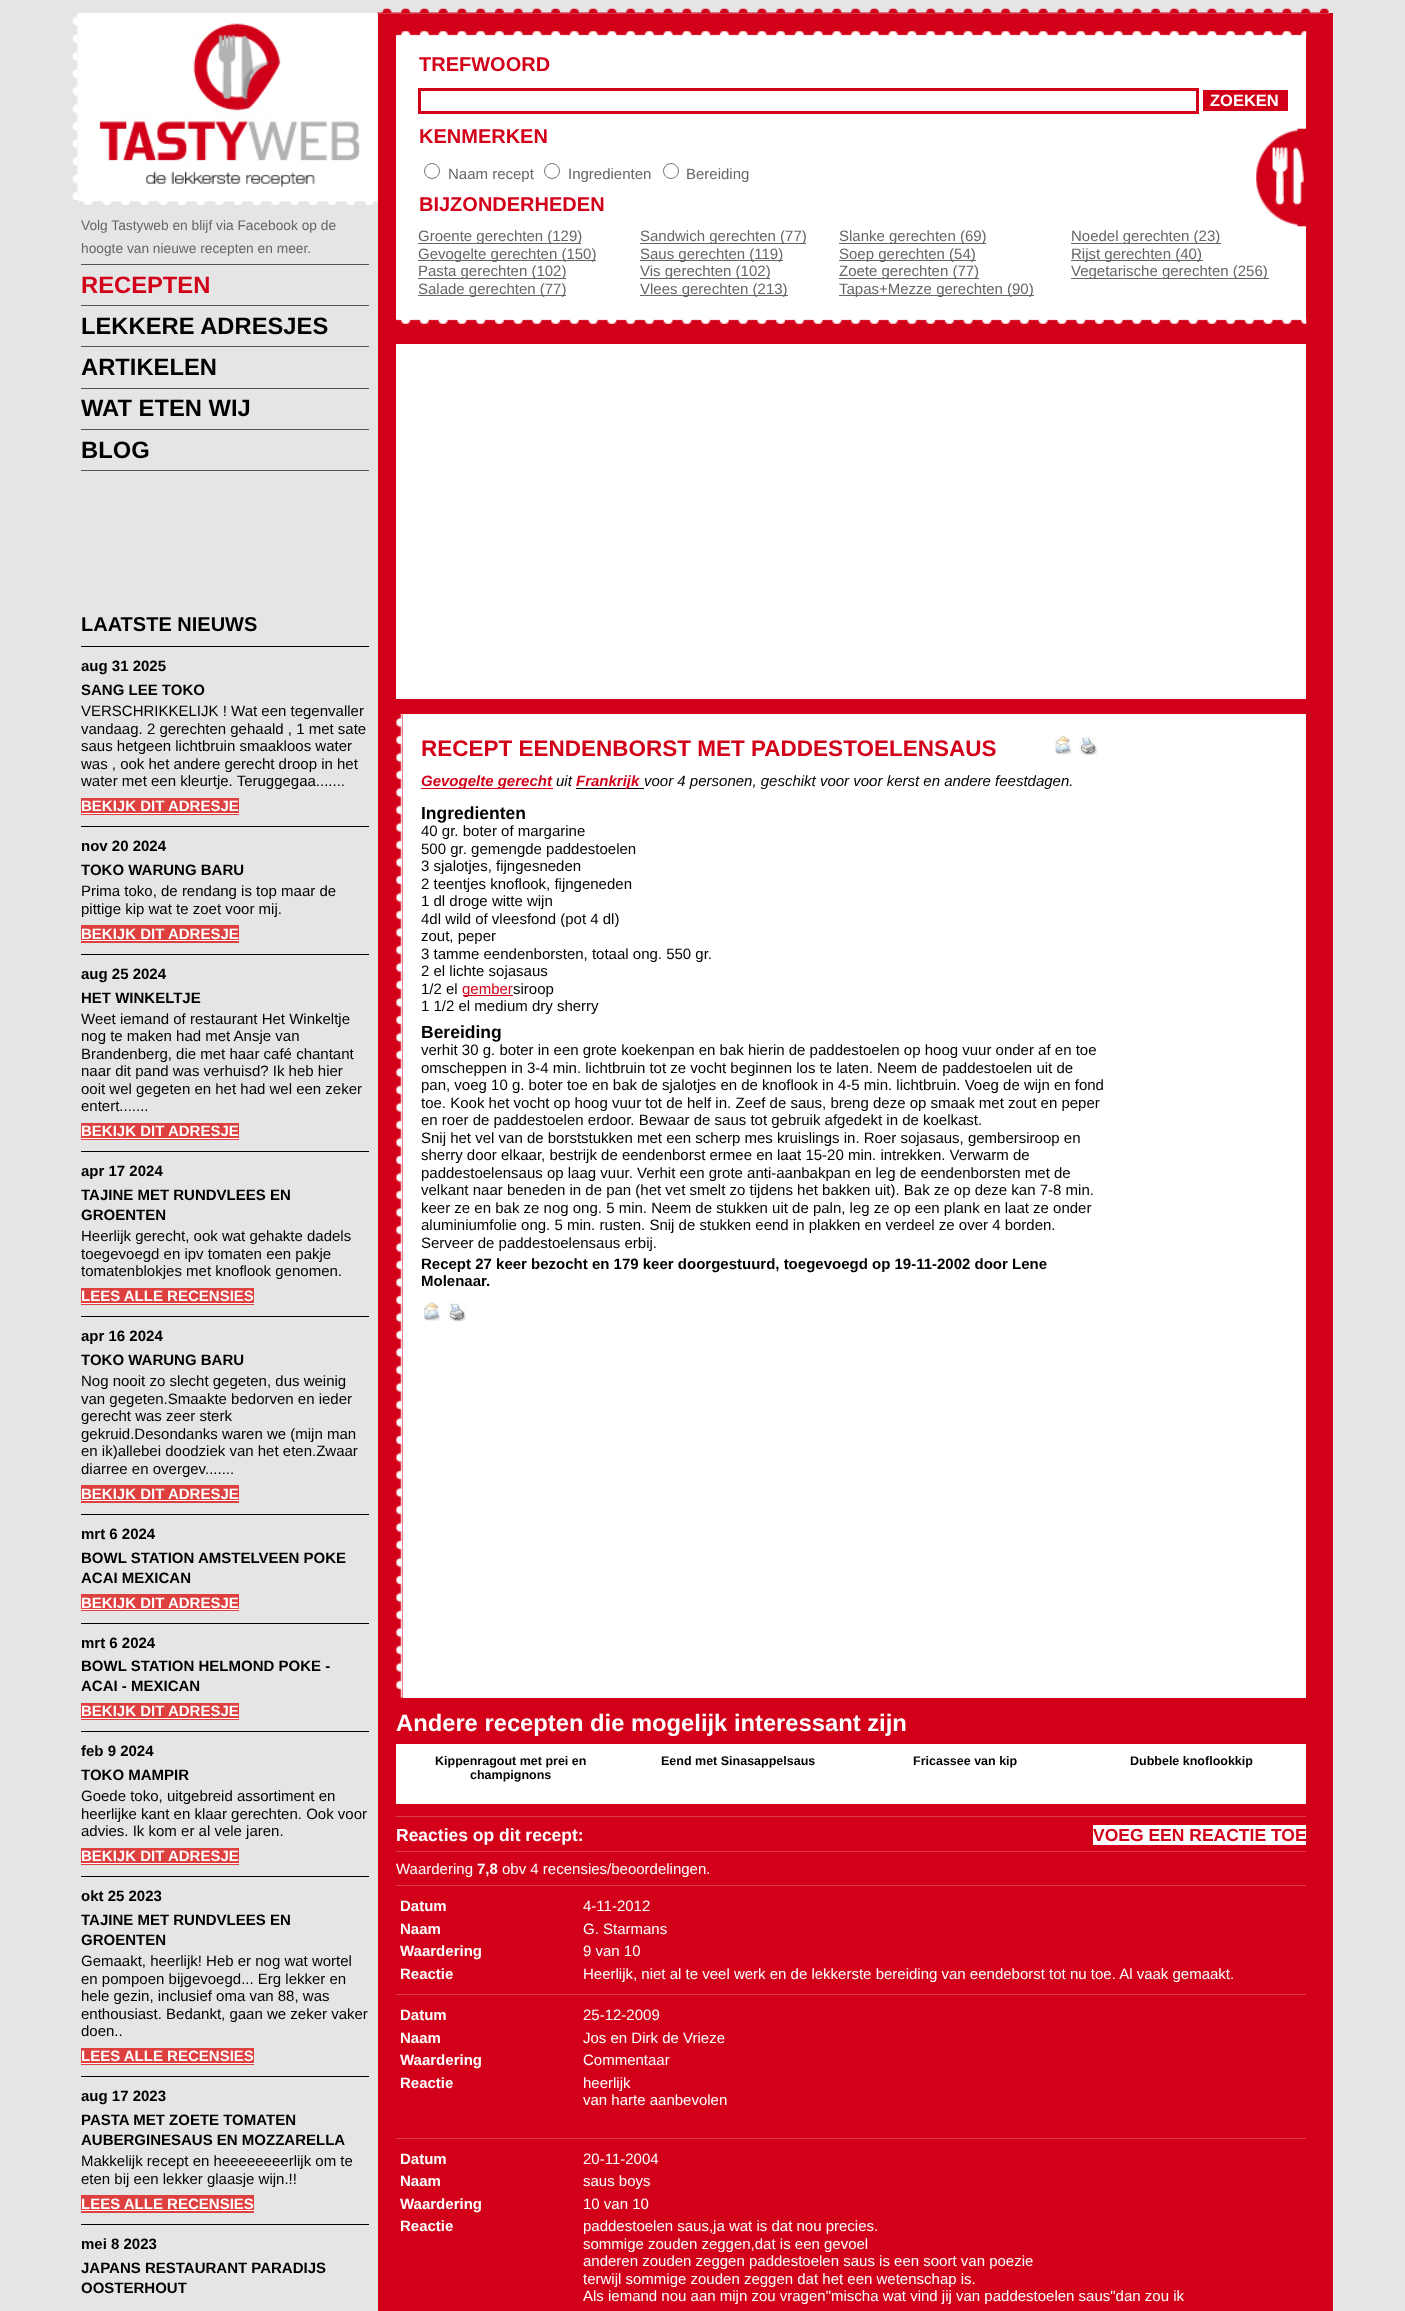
<svg xmlns="http://www.w3.org/2000/svg" width="1405" height="2311" viewBox="0 0 1405 2311">
  <rect width="100%" height="100%" fill="#e5e5e6"/>
  <path d="M378 13h955v2298H378z" fill="#d20019"/>
  <image x="72" y="12" width="7" height="188" href="img/1.png"/>
  <path d="M79 13h299v187H79z" fill="#fff"/>
  <image x="99" y="23" width="261" height="165" href="img/2.png"/>
  <image x="78" y="200" width="300" height="5" href="img/3.png"/>
  <path d="M81 264h288v1H81z" fill="#555"/>
  <path d="M81 305h288v1H81z" fill="#555"/>
  <path d="M81 346h288v1H81z" fill="#555"/>
  <path d="M81 388h288v1H81z" fill="#555"/>
  <path d="M81 429h288v1H81z" fill="#555"/>
  <path d="M81 470h288v1H81z" fill="#555"/>
  <path d="M81 646h288v1H81z" fill="#000"/>
  <path d="M81 798h158v17H81z" fill="#dd403e"/>
  <path d="M81 813h158v1H81z" fill="#fff"/>
  <path d="M81 826h288v1H81z" fill="#000"/>
  <path d="M81 925h158v18H81z" fill="#dd403e"/>
  <path d="M81 940h158v1H81z" fill="#fff"/>
  <path d="M81 954h288v1H81z" fill="#000"/>
  <path d="M81 1123h158v17H81z" fill="#dd403e"/>
  <path d="M81 1138h158v1H81z" fill="#fff"/>
  <path d="M81 1151h288v1H81z" fill="#000"/>
  <path d="M81 1288h173v17H81z" fill="#dd403e"/>
  <path d="M81 1303h173v1H81z" fill="#fff"/>
  <path d="M81 1316h288v1H81z" fill="#000"/>
  <path d="M81 1485h158v18H81z" fill="#dd403e"/>
  <path d="M81 1500h158v1H81z" fill="#fff"/>
  <path d="M81 1514h288v1H81z" fill="#000"/>
  <path d="M81 1594h158v17H81z" fill="#dd403e"/>
  <path d="M81 1609h158v1H81z" fill="#fff"/>
  <path d="M81 1623h288v1H81z" fill="#000"/>
  <path d="M81 1703h158v17H81z" fill="#dd403e"/>
  <path d="M81 1718h158v1H81z" fill="#fff"/>
  <path d="M81 1731h288v1H81z" fill="#000"/>
  <path d="M81 1848h158v17H81z" fill="#dd403e"/>
  <path d="M81 1863h158v1H81z" fill="#fff"/>
  <path d="M81 1876h288v1H81z" fill="#000"/>
  <path d="M81 2048h173v17H81z" fill="#dd403e"/>
  <path d="M81 2063h173v1H81z" fill="#fff"/>
  <path d="M81 2076h288v1H81z" fill="#000"/>
  <path d="M81 2195h173v18H81z" fill="#dd403e"/>
  <path d="M81 2210h173v1H81z" fill="#fff"/>
  <path d="M81 2224h288v1H81z" fill="#000"/>
  <path d="M378 13h951v1H378z" fill="#e5e5e6"/>
  <image x="377" y="8" width="952" height="6" href="img/4.png"/>
  <path d="M396 36h910v663H396z" fill="#fff"/>
  <image x="396" y="31" width="911" height="6" href="img/5.png"/>
  <image x="1256" y="128" width="50" height="99" href="img/6.png"/>
  <path d="M419.5 89.5h778v23H419.5z" fill="none" stroke="#d20019" stroke-width="3"/>
  <path d="M1203 90h85v21H1203z" fill="#d20019"/>
  <circle cx="432" cy="171" r="7.5" fill="none" stroke="#767676"/>
  <circle cx="552" cy="171" r="7.5" fill="none" stroke="#767676"/>
  <circle cx="671" cy="171" r="7.5" fill="none" stroke="#767676"/>
  <path d="M418 243h163v1H418z" fill="#666"/>
  <path d="M418 260h178v1H418z" fill="#666"/>
  <path d="M418 278h148v1H418z" fill="#666"/>
  <path d="M418 295h148v1H418z" fill="#666"/>
  <path d="M640 243h166v1H640z" fill="#666"/>
  <path d="M640 260h143v1H640z" fill="#666"/>
  <path d="M640 278h130v1H640z" fill="#666"/>
  <path d="M640 295h148v1H640z" fill="#666"/>
  <path d="M839 243h147v1H839z" fill="#666"/>
  <path d="M839 260h137v1H839z" fill="#666"/>
  <path d="M839 278h140v1H839z" fill="#666"/>
  <path d="M839 295h195v1H839z" fill="#666"/>
  <path d="M1071 243h150v1H1071z" fill="#666"/>
  <path d="M1071 260h132v1H1071z" fill="#666"/>
  <path d="M1071 278h198v1H1071z" fill="#666"/>
  <path d="M396 319h910v25H396z" fill="#d20019"/>
  <image x="396" y="318" width="911" height="6" href="img/7.png"/>
  <image x="396" y="713" width="7" height="985" href="img/8.png"/>
  <path d="M403 714h903v984H403z" fill="#fff"/>
  <image x="1055" y="736" width="17" height="19" href="img/9.png"/>
  <image x="1079" y="736" width="19" height="19" href="img/10.png"/>
  <path d="M421 788h132v1H421z" fill="#d20019"/>
  <path d="M576 788h64v1H576z" fill="#000"/>
  <path d="M463 995h50v1H463z" fill="#d20019"/>
  <image x="423" y="1302" width="17" height="19" href="img/11.png"/>
  <image x="447" y="1302" width="19" height="20" href="img/12.png"/>
  <path d="M396 1744h910v60H396z" fill="#fff"/>
  <path d="M396 1816h910v1H396z" fill="#dd403e"/>
  <path d="M1093 1825h213v20H1093z" fill="#fff"/>
  <path d="M396 1851h910v1H396z" fill="#dd403e"/>
  <path d="M396 1885h910v1H396z" fill="#dd403e"/>
  <path d="M396 1994h910v1H396z" fill="#dd403e"/>
  <path d="M396 2138h910v1H396z" fill="#dd403e"/>
  <g font-family="Liberation Sans" font-size="13.75" fill="#666">
    <text x="81" y="230">Volg Tastyweb en blijf via Facebook op de</text>
    <text x="81" y="253">hoogte van nieuwe recepten en meer.</text>
  </g>
  <text x="81" y="293" font-family="Liberation Sans" font-size="23.75" font-weight="bold" fill="#d20019">RECEPTEN</text>
  <g font-family="Liberation Sans" font-size="23.75" font-weight="bold" fill="#000">
    <text x="81" y="334">LEKKERE ADRESJES</text>
    <text x="81" y="375">ARTIKELEN</text>
    <text x="81" y="416">WAT ETEN WIJ</text>
    <text x="81" y="458">BLOG</text>
  </g>
  <text x="81" y="631" font-family="Liberation Sans" font-size="20" font-weight="bold" fill="#000">LAATSTE NIEUWS</text>
  <g font-family="Liberation Sans" font-size="15" font-weight="bold" fill="#000">
    <text x="81" y="671">aug 31 2025</text>
    <text x="81" y="695">SANG LEE TOKO</text>
  </g>
  <g font-family="Liberation Sans" font-size="15" fill="#000">
    <text x="81" y="716">VERSCHRIKKELIJK ! Wat een tegenvaller</text>
    <text x="81" y="734">vandaag. 2 gerechten gehaald , 1 met sate</text>
    <text x="81" y="751">saus hetgeen lichtbruin smaakloos water</text>
    <text x="81" y="769">was , ook het andere gerecht droop in het</text>
    <text x="81" y="786">water met een kleurtje. Teruggegaa.......</text>
  </g>
  <text x="81" y="811" font-family="Liberation Sans" font-size="15" font-weight="bold" fill="#fff">BEKIJK DIT ADRESJE</text>
  <g font-family="Liberation Sans" font-size="15" font-weight="bold" fill="#000">
    <text x="81" y="851">nov 20 2024</text>
    <text x="81" y="875">TOKO WARUNG BARU</text>
  </g>
  <g font-family="Liberation Sans" font-size="15" fill="#000">
    <text x="81" y="896">Prima toko, de rendang is top maar de</text>
    <text x="81" y="914">pittige kip wat te zoet voor mij.</text>
  </g>
  <text x="81" y="939" font-family="Liberation Sans" font-size="15" font-weight="bold" fill="#fff">BEKIJK DIT ADRESJE</text>
  <g font-family="Liberation Sans" font-size="15" font-weight="bold" fill="#000">
    <text x="81" y="979">aug 25 2024</text>
    <text x="81" y="1003">HET WINKELTJE</text>
  </g>
  <g font-family="Liberation Sans" font-size="15" fill="#000">
    <text x="81" y="1024">Weet iemand of restaurant Het Winkeltje</text>
    <text x="81" y="1041">nog te maken had met Ansje van</text>
    <text x="81" y="1059">Brandenberg, die met haar café chantant</text>
    <text x="81" y="1076">naar dit pand was verhuisd? Ik heb hier</text>
    <text x="81" y="1094">ooit wel gegeten en het had wel een zeker</text>
    <text x="81" y="1111">entert.......</text>
  </g>
  <text x="81" y="1136" font-family="Liberation Sans" font-size="15" font-weight="bold" fill="#fff">BEKIJK DIT ADRESJE</text>
  <g font-family="Liberation Sans" font-size="15" font-weight="bold" fill="#000">
    <text x="81" y="1176">apr 17 2024</text>
    <text x="81" y="1200">TAJINE MET RUNDVLEES EN</text>
    <text x="81" y="1220">GROENTEN</text>
  </g>
  <g font-family="Liberation Sans" font-size="15" fill="#000">
    <text x="81" y="1241">Heerlijk gerecht, ook wat gehakte dadels</text>
    <text x="81" y="1259">toegevoegd en ipv tomaten een pakje</text>
    <text x="81" y="1276">tomatenblokjes met knoflook genomen.</text>
  </g>
  <text x="81" y="1301" font-family="Liberation Sans" font-size="15" font-weight="bold" fill="#fff">LEES ALLE RECENSIES</text>
  <g font-family="Liberation Sans" font-size="15" font-weight="bold" fill="#000">
    <text x="81" y="1341">apr 16 2024</text>
    <text x="81" y="1365">TOKO WARUNG BARU</text>
  </g>
  <g font-family="Liberation Sans" font-size="15" fill="#000">
    <text x="81" y="1386">Nog nooit zo slecht gegeten, dus weinig</text>
    <text x="81" y="1404">van gegeten.Smaakte bedorven en ieder</text>
    <text x="81" y="1421">gerecht was zeer sterk</text>
    <text x="81" y="1439">gekruid.Desondanks waren we (mijn man</text>
    <text x="81" y="1456">en ik)allebei doodziek van het eten.Zwaar</text>
    <text x="81" y="1474">diarree en overgev.......</text>
  </g>
  <text x="81" y="1499" font-family="Liberation Sans" font-size="15" font-weight="bold" fill="#fff">BEKIJK DIT ADRESJE</text>
  <g font-family="Liberation Sans" font-size="15" font-weight="bold" fill="#000">
    <text x="81" y="1539">mrt 6 2024</text>
    <text x="81" y="1563">BOWL STATION AMSTELVEEN POKE</text>
    <text x="81" y="1583">ACAI MEXICAN</text>
  </g>
  <text x="81" y="1608" font-family="Liberation Sans" font-size="15" font-weight="bold" fill="#fff">BEKIJK DIT ADRESJE</text>
  <g font-family="Liberation Sans" font-size="15" font-weight="bold" fill="#000">
    <text x="81" y="1648">mrt 6 2024</text>
    <text x="81" y="1671">BOWL STATION HELMOND POKE -</text>
    <text x="81" y="1691">ACAI - MEXICAN</text>
  </g>
  <text x="81" y="1716" font-family="Liberation Sans" font-size="15" font-weight="bold" fill="#fff">BEKIJK DIT ADRESJE</text>
  <g font-family="Liberation Sans" font-size="15" font-weight="bold" fill="#000">
    <text x="81" y="1756">feb 9 2024</text>
    <text x="81" y="1780">TOKO MAMPIR</text>
  </g>
  <g font-family="Liberation Sans" font-size="15" fill="#000">
    <text x="81" y="1801">Goede toko, uitgebreid assortiment en</text>
    <text x="81" y="1819">heerlijke kant en klaar gerechten. Ook voor</text>
    <text x="81" y="1836">advies. Ik kom er al vele jaren.</text>
  </g>
  <text x="81" y="1861" font-family="Liberation Sans" font-size="15" font-weight="bold" fill="#fff">BEKIJK DIT ADRESJE</text>
  <g font-family="Liberation Sans" font-size="15" font-weight="bold" fill="#000">
    <text x="81" y="1901">okt 25 2023</text>
    <text x="81" y="1925">TAJINE MET RUNDVLEES EN</text>
    <text x="81" y="1945">GROENTEN</text>
  </g>
  <g font-family="Liberation Sans" font-size="15" fill="#000">
    <text x="81" y="1966">Gemaakt, heerlijk! Heb er nog wat wortel</text>
    <text x="81" y="1984">en pompoen bijgevoegd... Erg lekker en</text>
    <text x="81" y="2001">hele gezin, inclusief oma van 88, was</text>
    <text x="81" y="2019">enthousiast. Bedankt, gaan we zeker vaker</text>
    <text x="81" y="2036">doen..</text>
  </g>
  <text x="81" y="2061" font-family="Liberation Sans" font-size="15" font-weight="bold" fill="#fff">LEES ALLE RECENSIES</text>
  <g font-family="Liberation Sans" font-size="15" font-weight="bold" fill="#000">
    <text x="81" y="2101">aug 17 2023</text>
    <text x="81" y="2125">PASTA MET ZOETE TOMATEN</text>
    <text x="81" y="2145">AUBERGINESAUS EN MOZZARELLA</text>
  </g>
  <g font-family="Liberation Sans" font-size="15" fill="#000">
    <text x="81" y="2166">Makkelijk recept en heeeeeeeerlijk om te</text>
    <text x="81" y="2184">eten bij een lekker glaasje wijn.!!</text>
  </g>
  <text x="81" y="2209" font-family="Liberation Sans" font-size="15" font-weight="bold" fill="#fff">LEES ALLE RECENSIES</text>
  <g font-family="Liberation Sans" font-size="15" font-weight="bold" fill="#000">
    <text x="81" y="2249">mei 8 2023</text>
    <text x="81" y="2273">JAPANS RESTAURANT PARADIJS</text>
    <text x="81" y="2293">OOSTERHOUT</text>
  </g>
  <text x="419" y="71" font-family="Liberation Sans" font-size="20" font-weight="bold" fill="#d20019">TREFWOORD</text>
  <text x="1210" y="106" font-family="Liberation Sans" font-size="16.5" font-weight="bold" fill="#fff">ZOEKEN</text>
  <text x="419" y="143" font-family="Liberation Sans" font-size="20" font-weight="bold" fill="#d20019">KENMERKEN</text>
  <g font-family="Liberation Sans" font-size="15" fill="#666">
    <text x="448" y="179">Naam recept</text>
    <text x="568" y="179">Ingredienten</text>
    <text x="686" y="179">Bereiding</text>
  </g>
  <text x="419" y="211" font-family="Liberation Sans" font-size="20" font-weight="bold" fill="#d20019">BIJZONDERHEDEN</text>
  <g font-family="Liberation Sans" font-size="15" fill="#666">
    <text x="418" y="241">Groente gerechten (129)</text>
    <text x="418" y="259">Gevogelte gerechten (150)</text>
    <text x="418" y="276">Pasta gerechten (102)</text>
    <text x="418" y="294">Salade gerechten (77)</text>
    <text x="640" y="241">Sandwich gerechten (77)</text>
    <text x="640" y="259">Saus gerechten (119)</text>
    <text x="640" y="276">Vis gerechten (102)</text>
    <text x="640" y="294">Vlees gerechten (213)</text>
    <text x="839" y="241">Slanke gerechten (69)</text>
    <text x="839" y="259">Soep gerechten (54)</text>
    <text x="839" y="276">Zoete gerechten (77)</text>
    <text x="839" y="294">Tapas+Mezze gerechten (90)</text>
    <text x="1071" y="241">Noedel gerechten (23)</text>
    <text x="1071" y="259">Rijst gerechten (40)</text>
    <text x="1071" y="276">Vegetarische gerechten (256)</text>
  </g>
  <text x="421" y="756" font-family="Liberation Sans" font-size="22.5" font-weight="bold" fill="#d20019">RECEPT EENDENBORST MET PADDESTOELENSAUS</text>
  <text x="421" y="786" font-family="Liberation Sans" font-size="15" font-weight="bold" font-style="italic" fill="#d20019">Gevogelte gerecht</text>
  <text x="556" y="786" font-family="Liberation Sans" font-size="15" font-style="italic" fill="#000">uit</text>
  <text x="576" y="786" font-family="Liberation Sans" font-size="15" font-weight="bold" font-style="italic" fill="#d20019">Frankrijk</text>
  <path d="M640 788h4v1H640z" fill="#000"/>
  <text x="644" y="786" font-family="Liberation Sans" font-size="15" font-style="italic" fill="#000">voor 4 personen, geschikt voor voor kerst en andere feestdagen.</text>
  <text x="421" y="819" font-family="Liberation Sans" font-size="17.5" font-weight="bold" fill="#000">Ingredienten</text>
  <g font-family="Liberation Sans" font-size="15" fill="#000">
    <text x="421" y="836">40 gr. boter of margarine</text>
    <text x="421" y="854">500 gr. gemengde paddestoelen</text>
    <text x="421" y="871">3 sjalotjes, fijngesneden</text>
    <text x="421" y="889">2 teentjes knoflook, fijngeneden</text>
    <text x="421" y="906">1 dl droge witte wijn</text>
    <text x="421" y="924">4dl wild of vleesfond (pot 4 dl)</text>
    <text x="421" y="941">zout, peper</text>
    <text x="421" y="959">3 tamme eendenborsten, totaal ong. 550 gr.</text>
    <text x="421" y="976">2 el lichte sojasaus</text>
    <text x="421" y="994">1/2 el</text>
  </g>
  <text x="462" y="994" font-family="Liberation Sans" font-size="15" fill="#d20019">gember</text>
  <g font-family="Liberation Sans" font-size="15" fill="#000">
    <text x="513" y="994">siroop</text>
    <text x="421" y="1011">1 1/2 el medium dry sherry</text>
  </g>
  <text x="421" y="1038" font-family="Liberation Sans" font-size="17.5" font-weight="bold" fill="#000">Bereiding</text>
  <g font-family="Liberation Sans" font-size="15" fill="#000">
    <text x="421" y="1055">verhit 30 g. boter in een grote koekenpan en bak hierin de paddestoelen op hoog vuur onder af en toe</text>
    <text x="421" y="1073">omscheppen in 3-4 min. lichtbruin tot ze vocht beginnen los te laten. Neem de paddestoelen uit de</text>
    <text x="421" y="1090">pan, voeg 10 g. boter toe en bak de sjalotjes en de knoflook in 4-5 min. lichtbruin. Voeg de wijn en fond</text>
    <text x="421" y="1108">toe. Kook het vocht op hoog vuur tot de helf in. Zeef de saus, breng deze op smaak met zout en peper</text>
    <text x="421" y="1125">en roer de paddestoelen erdoor. Bewaar de saus tot gebruik afgedekt in de koelkast.</text>
    <text x="421" y="1143">Snij het vel van de borststukken met een scherp mes kruislings in. Roer sojasaus, gembersiroop en</text>
    <text x="421" y="1160">sherry door elkaar, bestrijk de eendenborst ermee en laat 15-20 min. intrekken. Verwarm de</text>
    <text x="421" y="1178">paddestoelensaus op laag vuur. Verhit een grote anti-aanbakpan en leg de eendenborsten met de</text>
    <text x="421" y="1195">velkant naar beneden in de pan (het vet smelt zo tijdens het bakken uit). Bak ze op deze kan 7-8 min.</text>
    <text x="421" y="1213">keer ze en bak ze nog ong. 5 min. Neem de stukken uit de paln, leg ze op een plank en laat ze onder</text>
    <text x="421" y="1230">aluminiumfolie ong. 5 min. rusten. Snij de stukken eend in plakken en verdeel ze over 4 borden.</text>
    <text x="421" y="1248">Serveer de paddestoelensaus erbij.</text>
  </g>
  <g font-family="Liberation Sans" font-size="15" font-weight="bold" fill="#000">
    <text x="421" y="1269">Recept 27 keer bezocht en 179 keer doorgestuurd, toegevoegd op 19-11-2002 door Lene</text>
    <text x="421" y="1286">Molenaar</text>
    <text x="486" y="1286">.</text>
  </g>
  <text x="396" y="1731" font-family="Liberation Sans" font-size="23.75" font-weight="bold" fill="#fff">Andere recepten die mogelijk interessant zijn</text>
  <g font-family="Liberation Sans" font-size="12.5" font-weight="bold" fill="#000">
    <text x="435" y="1765">Kippenragout met prei en</text>
    <text x="470" y="1779">champignons</text>
    <text x="661" y="1765">Eend met Sinasappelsaus</text>
    <text x="913" y="1765">Fricassee van kip</text>
    <text x="1130" y="1765">Dubbele knoflookkip</text>
  </g>
  <text x="396" y="1841" font-family="Liberation Sans" font-size="17.5" font-weight="bold" fill="#fff">Reacties op dit recept:</text>
  <text x="1093" y="1841" font-family="Liberation Sans" font-size="17.5" font-weight="bold" fill="#d20019">VOEG EEN REACTIE TOE</text>
  <text x="396" y="1874" font-family="Liberation Sans" font-size="15" fill="#fff">Waardering</text>
  <text x="477" y="1874" font-family="Liberation Sans" font-size="15" font-weight="bold" fill="#fff">7,8</text>
  <text x="502" y="1874" font-family="Liberation Sans" font-size="15" fill="#fff">obv 4 recensies/beoordelingen.</text>
  <text x="400" y="1911" font-family="Liberation Sans" font-size="15" font-weight="bold" fill="#fff">Datum</text>
  <text x="583" y="1911" font-family="Liberation Sans" font-size="15" fill="#fff">4-11-2012</text>
  <text x="400" y="1934" font-family="Liberation Sans" font-size="15" font-weight="bold" fill="#fff">Naam</text>
  <text x="583" y="1934" font-family="Liberation Sans" font-size="15" fill="#fff">G. Starmans</text>
  <text x="400" y="1956" font-family="Liberation Sans" font-size="15" font-weight="bold" fill="#fff">Waardering</text>
  <text x="583" y="1956" font-family="Liberation Sans" font-size="15" fill="#fff">9 van 10</text>
  <text x="400" y="1979" font-family="Liberation Sans" font-size="15" font-weight="bold" fill="#fff">Reactie</text>
  <text x="583" y="1979" font-family="Liberation Sans" font-size="15" fill="#fff">Heerlijk, niet al te veel werk en de lekkerste bereiding van eendeborst tot nu toe. Al vaak gemaakt.</text>
  <text x="400" y="2020" font-family="Liberation Sans" font-size="15" font-weight="bold" fill="#fff">Datum</text>
  <text x="583" y="2020" font-family="Liberation Sans" font-size="15" fill="#fff">25-12-2009</text>
  <text x="400" y="2043" font-family="Liberation Sans" font-size="15" font-weight="bold" fill="#fff">Naam</text>
  <text x="583" y="2043" font-family="Liberation Sans" font-size="15" fill="#fff">Jos en Dirk de Vrieze</text>
  <text x="400" y="2065" font-family="Liberation Sans" font-size="15" font-weight="bold" fill="#fff">Waardering</text>
  <text x="583" y="2065" font-family="Liberation Sans" font-size="15" fill="#fff">Commentaar</text>
  <text x="400" y="2088" font-family="Liberation Sans" font-size="15" font-weight="bold" fill="#fff">Reactie</text>
  <g font-family="Liberation Sans" font-size="15" fill="#fff">
    <text x="583" y="2088">heerlijk</text>
    <text x="583" y="2105">van harte aanbevolen</text>
  </g>
  <text x="400" y="2164" font-family="Liberation Sans" font-size="15" font-weight="bold" fill="#fff">Datum</text>
  <text x="583" y="2164" font-family="Liberation Sans" font-size="15" fill="#fff">20-11-2004</text>
  <text x="400" y="2186" font-family="Liberation Sans" font-size="15" font-weight="bold" fill="#fff">Naam</text>
  <text x="583" y="2186" font-family="Liberation Sans" font-size="15" fill="#fff">saus boys</text>
  <text x="400" y="2209" font-family="Liberation Sans" font-size="15" font-weight="bold" fill="#fff">Waardering</text>
  <text x="583" y="2209" font-family="Liberation Sans" font-size="15" fill="#fff">10 van 10</text>
  <text x="400" y="2231" font-family="Liberation Sans" font-size="15" font-weight="bold" fill="#fff">Reactie</text>
  <g font-family="Liberation Sans" font-size="15" fill="#fff">
    <text x="583" y="2231">paddestoelen saus,ja wat is dat nou precies.</text>
    <text x="583" y="2249">sommige zouden zeggen,dat is een gevoel</text>
    <text x="583" y="2266">anderen zouden zeggen paddestoelen saus is een soort van poezie</text>
    <text x="583" y="2284">terwijl sommige zouden zeggen dat het een wetenschap is.</text>
    <text x="583" y="2301">Als iemand nou aan mijn zou vragen"mischa wat vind jij van paddestoelen saus"dan zou ik</text>
  </g>
</svg>
